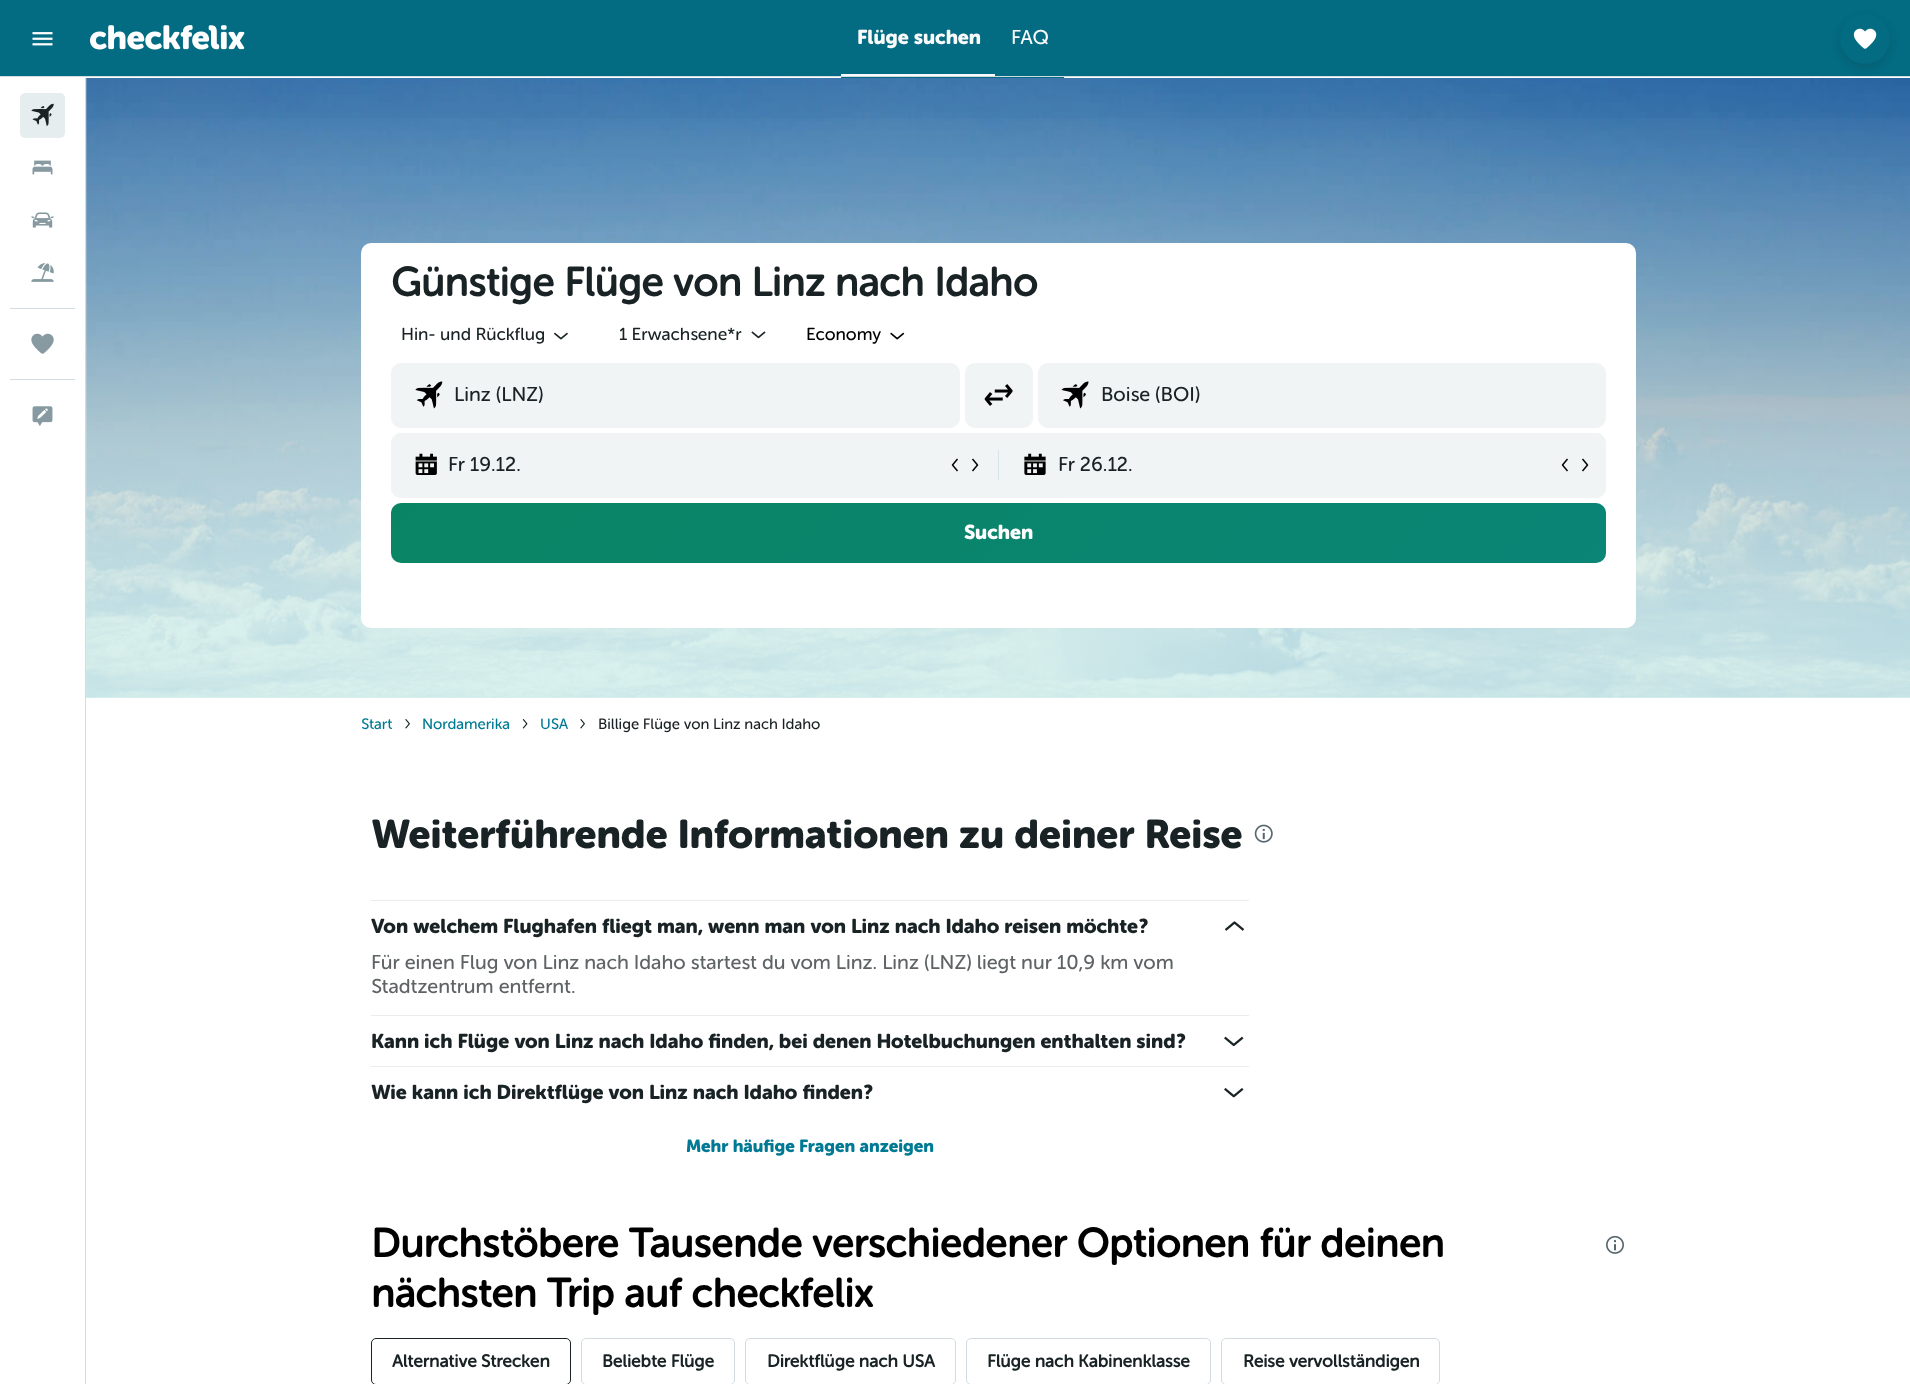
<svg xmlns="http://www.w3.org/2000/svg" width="1910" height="1384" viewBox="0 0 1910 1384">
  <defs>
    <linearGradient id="g1" gradientUnits="userSpaceOnUse" x1="998" y1="698" x2="998" y2="78"><stop offset="0" stop-color="#d6faf9" stop-opacity="0.7"/><stop offset="0.12" stop-color="#d6faf9" stop-opacity="0.66"/><stop offset="0.25" stop-color="#d6faf9" stop-opacity="0.55"/><stop offset="0.38" stop-color="#d6faf9" stop-opacity="0.39"/><stop offset="0.5" stop-color="#d6faf9" stop-opacity="0.2"/><stop offset="0.62" stop-color="#d6faf9" stop-opacity="0.08"/><stop offset="0.75" stop-color="#d6faf9" stop-opacity="0.06"/><stop offset="0.88" stop-color="#d6faf9" stop-opacity="0.04"/><stop offset="1" stop-color="#d6faf9" stop-opacity="0"/></linearGradient>
    <linearGradient id="g2" gradientUnits="userSpaceOnUse" x1="680" y1="214" x2="1318" y2="851"><stop offset="0" stop-color="#0a8564"/><stop offset="1" stop-color="#0a8576"/></linearGradient>
  </defs>
  <rect width="100%" height="100%" fill="#fff"/>
  <path d="M86 78h1824v620H86z" fill="#dddede"/>
  <path d="M0 76h1910v1H0z" fill="#d2dce0"/>
  <path d="M0 0h1910v76H0z" fill="#036b82"/>
  <image x="32" y="32" width="21" height="14" href="img/1.png"/>
  <image x="90" y="25" width="155" height="25" href="img/2.png"/>
  <path d="M841 76h223v2H841z" fill="#036b82"/>
  <path d="M841 76h223v1H841z" fill="#d2dce0"/>
  <path d="M841 74h154v2H841z" fill="#f9fafb"/>
  <image x="86" y="78" width="1824" height="620" href="img/10.png"/>
  <rect x="1840" y="18" width="50" height="50" rx="25" fill="#19222429" filter="blur(4px)"/>
  <circle cx="1865" cy="39" r="25" fill="#036b82"/>
  <image x="1853" y="28" width="24" height="21" href="img/3.png"/>
  <path d="M85 78h1v1306H85z" fill="#d2dce0"/>
  <rect x="20" y="93" width="45" height="45" rx="5" fill="#e6edef"/>
  <image x="31" y="103" width="23" height="24" href="img/4.png"/>
  <image x="32" y="160" width="21" height="15" href="img/5.png"/>
  <image x="31" y="212" width="23" height="16" href="img/6.png"/>
  <image x="31" y="263" width="23" height="19" href="img/7.png"/>
  <path d="M10 308h65v1H10z" fill="#d2dce0"/>
  <image x="31" y="333" width="23" height="21" href="img/8.png"/>
  <path d="M10 379h65v1H10z" fill="#d2dce0"/>
  <image x="32" y="406" width="21" height="20" href="img/9.png"/>
  <path d="M86 118h1824v580H86z" fill="url(#g1)"/>
  <rect x="361" y="243" width="1275" height="385" rx="10" fill="#fff"/>
  <image x="553" y="332" width="15" height="8" href="img/11.png"/>
  <image x="751" y="331" width="15" height="8" href="img/12.png"/>
  <image x="890" y="332" width="15" height="8" href="img/13.png"/>
  <rect x="391.5" y="363.5" width="568" height="64" rx="9.5" fill="#f0f4f5" stroke="#f0f4f5"/>
  <image x="415" y="381" width="28" height="28" href="img/14.png"/>
  <rect x="965" y="363" width="68" height="65" rx="10" fill="#f0f4f5"/>
  <image x="984" y="384" width="29" height="22" href="img/15.png"/>
  <rect x="1038.5" y="363.5" width="567" height="64" rx="9.5" fill="#f0f4f5" stroke="#f0f4f5"/>
  <image x="1061" y="381" width="28" height="28" href="img/16.png"/>
  <rect x="391" y="433" width="1215" height="65" rx="10" fill="#f0f4f5"/>
  <rect x="391" y="433" width="605" height="65" rx="10" fill="#f0f4f5"/>
  <image x="415" y="453" width="22" height="22" href="img/17.png"/>
  <image x="951" y="458" width="7" height="14" href="img/18.png"/>
  <image x="972" y="458" width="7" height="14" href="img/19.png"/>
  <path d="M998 450h1v30H998z" fill="#d9e4e8"/>
  <rect x="1000" y="433" width="606" height="65" rx="10" fill="#f0f4f5"/>
  <image x="1024" y="453" width="22" height="22" href="img/20.png"/>
  <image x="1561" y="458" width="7" height="14" href="img/18.png"/>
  <image x="1582" y="458" width="7" height="14" href="img/19.png"/>
  <rect x="391" y="503" width="1215" height="60" rx="10" fill="url(#g2)"/>
  <image x="405" y="719" width="5" height="10" href="img/21.png"/>
  <image x="522" y="719" width="6" height="10" href="img/22.png"/>
  <image x="580" y="719" width="5" height="10" href="img/21.png"/>
  <image x="1254" y="824" width="19" height="19" href="img/23.png"/>
  <path d="M371 900h878v1H371z" fill="#edecec"/>
  <image x="1224" y="921" width="21" height="10" href="img/24.png"/>
  <path d="M371 1015h878v1H371z" fill="#edecec"/>
  <image x="1224" y="1036" width="20" height="11" href="img/25.png"/>
  <path d="M371 1066h878v1H371z" fill="#edecec"/>
  <image x="1224" y="1088" width="20" height="10" href="img/26.png"/>
  <image x="1606" y="1235" width="18" height="19" href="img/27.png"/>
  <rect x="371.5" y="1338.5" width="199" height="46" rx="4.5" fill="none" stroke="#192224"/>
  <rect x="581.5" y="1338.5" width="153" height="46" rx="4.5" fill="none" stroke="#d2dce0"/>
  <rect x="745.5" y="1338.5" width="210" height="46" rx="4.5" fill="none" stroke="#d2dce0"/>
  <rect x="966.5" y="1338.5" width="244" height="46" rx="4.5" fill="none" stroke="#d2dce0"/>
  <rect x="1221.5" y="1338.5" width="218" height="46" rx="4.5" fill="none" stroke="#d2dce0"/>
  <text x="857" y="44" font-family="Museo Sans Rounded" font-size="20" font-weight="bold" fill="#f9fafb">Flüge suchen</text>
  <text x="1011" y="44" font-family="Museo Sans Rounded" font-size="20" fill="#f9fafb">FAQ</text>
  <text x="391" y="296" font-family="'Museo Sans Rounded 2'" font-size="40" font-weight="bold" fill="#192224">Günstige Flüge von Linz nach Idaho</text>
  <g font-family="Museo Sans Rounded" font-size="17.5" fill="#192224">
    <text x="401" y="340">Hin- und Rückflug</text>
    <text x="619" y="340">1 Erwachsene*r</text>
  </g>
  <text x="806" y="340" font-family="Museo Sans Rounded" font-size="17.5" fill="#000">Economy</text>
  <g font-family="Museo Sans Rounded" font-size="20" fill="#192224">
    <text x="454" y="401">Linz (LNZ)</text>
    <text x="1101" y="401">Boise (BOI)</text>
    <text x="448" y="471">Fr 19.12.</text>
    <text x="1058" y="471">Fr 26.12.</text>
  </g>
  <text x="964" y="539" font-family="Museo Sans Rounded" font-size="20" font-weight="bold" fill="#fff">Suchen</text>
  <g font-family="Museo Sans Rounded" font-size="15" fill="#007a94">
    <text x="361" y="729">Start</text>
    <text x="422" y="729">Nordamerika</text>
    <text x="540" y="729">USA</text>
  </g>
  <text x="598" y="729" font-family="Museo Sans Rounded" font-size="15" fill="#192224">Billige Flüge von Linz nach Idaho</text>
  <text x="371" y="848" font-family="Museo Sans Rounded" font-size="40" font-weight="bold" fill="#192224">Weiterführende Informationen zu deiner Reise</text>
  <text x="371" y="933" font-family="Museo Sans Rounded" font-size="20" font-weight="bold" fill="#192224">Von welchem Flughafen fliegt man, wenn man von Linz nach Idaho reisen möchte?</text>
  <g font-family="Museo Sans Rounded" font-size="20" fill="#5e6466">
    <text x="371" y="969">Für einen Flug von Linz nach Idaho startest du vom Linz. Linz (LNZ) liegt nur 10,9 km vom</text>
    <text x="371" y="993">Stadtzentrum entfernt.</text>
  </g>
  <g font-family="Museo Sans Rounded" font-size="20" font-weight="bold" fill="#192224">
    <text x="371" y="1048">Kann ich Flüge von Linz nach Idaho finden, bei denen Hotelbuchungen enthalten sind?</text>
    <text x="371" y="1099">Wie kann ich Direktflüge von Linz nach Idaho finden?</text>
  </g>
  <text x="686" y="1152" font-family="Museo Sans Rounded" font-size="17.5" font-weight="bold" fill="#007a94">Mehr häufige Fragen anzeigen</text>
  <g font-family="'Museo Sans Rounded 2'" font-size="40" font-weight="bold" fill="#000">
    <text x="371" y="1257">Durchstöbere Tausende verschiedener Optionen für deinen</text>
    <text x="371" y="1307">nächsten Trip auf checkfelix</text>
  </g>
  <g font-family="'Museo Sans Rounded 2'" font-size="17.5" font-weight="bold" fill="#192224">
    <text x="392" y="1367">Alternative Strecken</text>
    <text x="602" y="1367">Beliebte Flüge</text>
    <text x="767" y="1367">Direktflüge nach USA</text>
    <text x="987" y="1367">Flüge nach Kabinenklasse</text>
    <text x="1243" y="1367">Reise vervollständigen</text>
  </g>
</svg>
